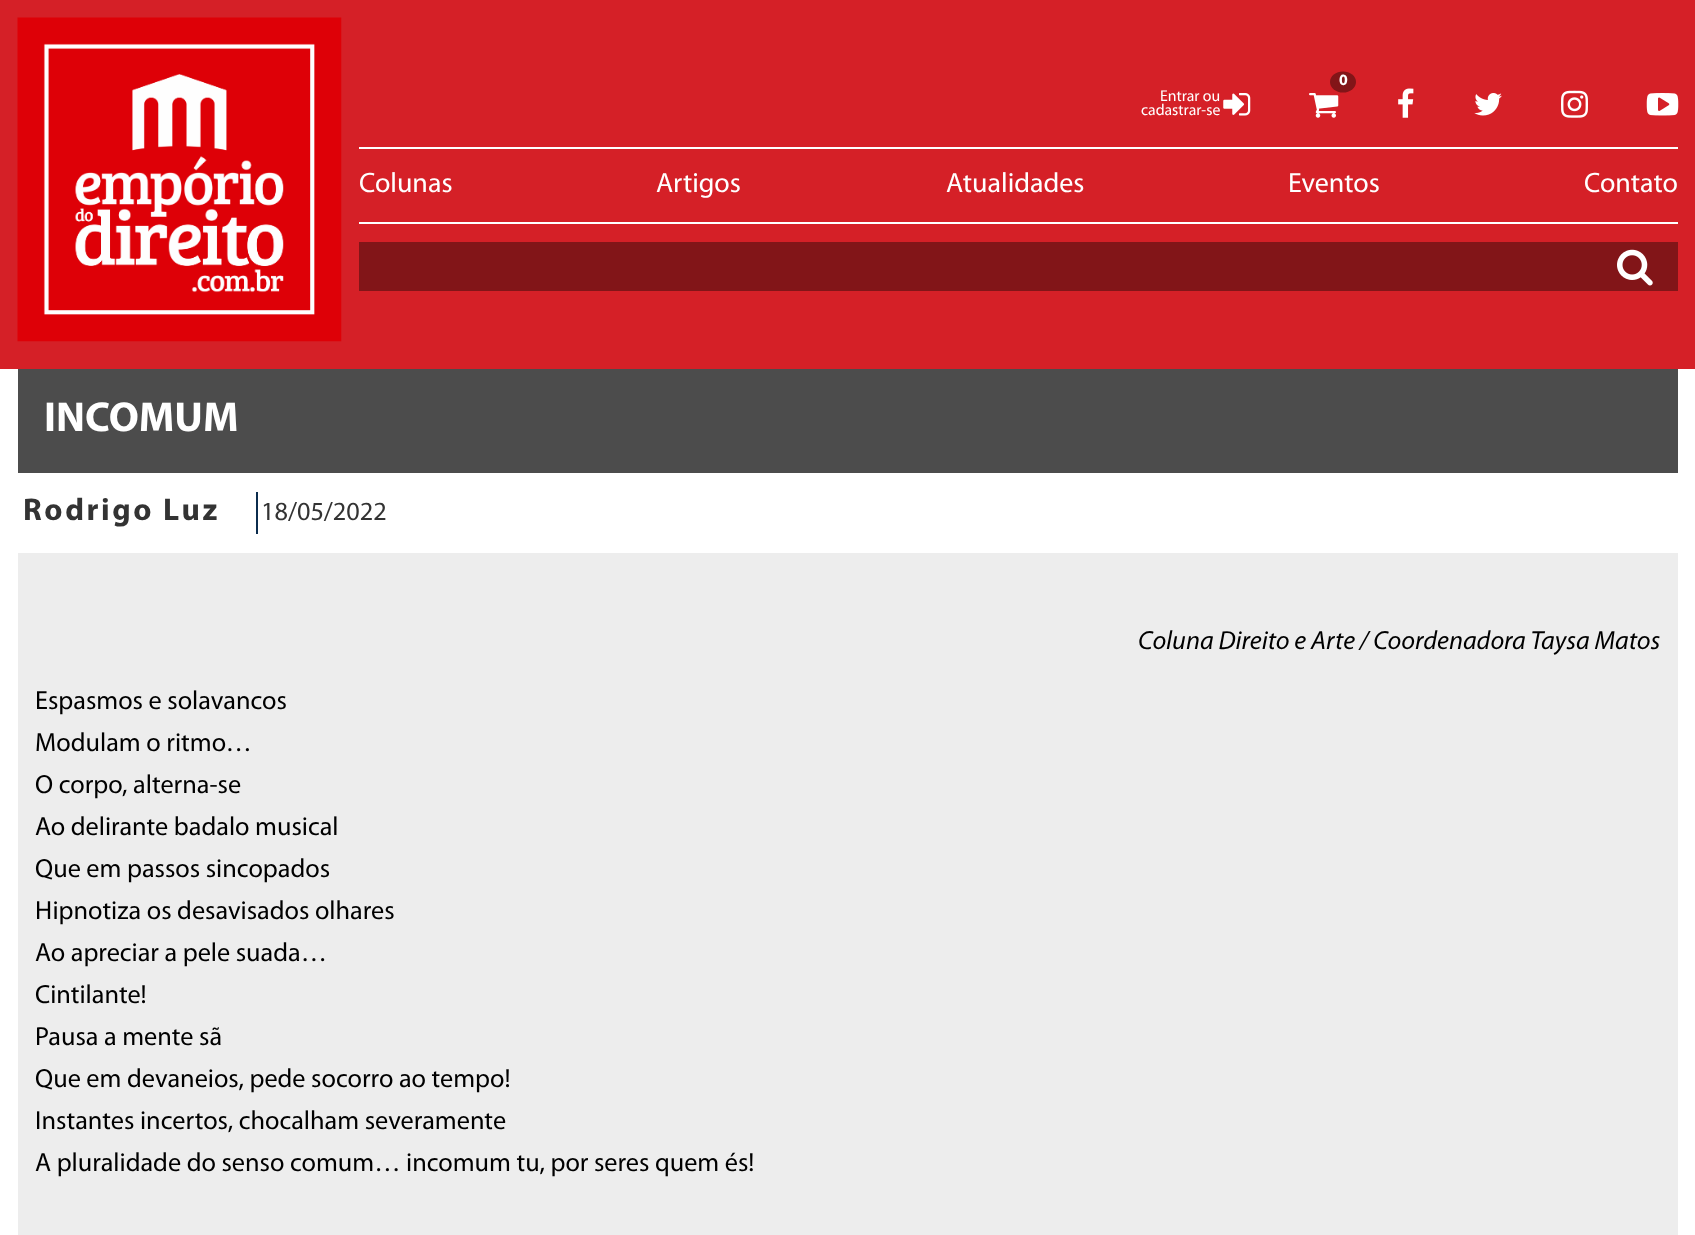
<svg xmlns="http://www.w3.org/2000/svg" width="1695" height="1235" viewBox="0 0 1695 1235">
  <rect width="100%" height="100%" fill="#fff"/>
  <path d="M0 0h1695v369H0z" fill="#d52027"/>
  <image x="17" y="17" width="325" height="325" href="img/1.png"/>
  <ellipse cx="1343" cy="82" rx="13" ry="10.5" fill="#821518"/>
  <image x="1309" y="93" width="30" height="25" href="img/2.png"/>
  <image x="1223" y="93" width="28" height="23" href="img/3.png"/>
  <image x="1398" y="88" width="16" height="30" href="img/4.png"/>
  <image x="1474" y="93" width="28" height="23" href="img/5.png"/>
  <image x="1561" y="90" width="27" height="28" href="img/6.png"/>
  <image x="1646" y="93" width="33" height="23" href="img/7.png"/>
  <path d="M359 147h1319v2H359z" fill="#fff"/>
  <path d="M359 222h1319v2H359z" fill="#fff"/>
  <path d="M359 242h1319v49H359z" fill="#821518"/>
  <image x="1617" y="249" width="36" height="37" href="img/8.png"/>
  <path d="M18 369h1660v104H18z" fill="#4c4c4c"/>
  <path d="M256 492h2v42H256z" fill="#0b2c4d"/>
  <path d="M18 553h1660v682H18z" fill="#ededed"/>
  <text x="1339" y="85" font-family="Myriad" font-size="15.75" font-weight="bold" fill="#fff">0</text>
  <g font-family="Myriad" font-size="15.75" fill="#fff">
    <text x="1160" y="101">Entrar ou</text>
    <text x="1141" y="115">cadastrar-se</text>
  </g>
  <g font-family="Myriad" font-size="28" fill="#fff">
    <text x="359" y="192">Colunas</text>
    <text x="656" y="192">Artigos</text>
    <text x="946" y="192">Atualidades</text>
    <text x="1288" y="192">Eventos</text>
    <text x="1584" y="192">Contato</text>
  </g>
  <text x="44" y="431" font-family="Myriad" font-size="42" font-weight="bold" fill="#fff">INCOMUM</text>
  <text x="23" y="520" font-family="Myriad" font-size="31.5" font-weight="bold" letter-spacing="2.6" fill="#333">Rodrigo Luz</text>
  <text x="261" y="520" font-family="Myriad" font-size="26.25" fill="#333">18/05/2022</text>
  <text x="1138" y="649" font-family="Myriad" font-size="26.25" font-style="italic" fill="#000">Coluna Direito e Arte / Coordenadora Taysa Matos</text>
  <g font-family="Myriad" font-size="26.25" fill="#000">
    <text x="35" y="709">Espasmos e solavancos</text>
    <text x="35" y="751">Modulam o ritmo…</text>
    <text x="35" y="793">O corpo, alterna-se</text>
    <text x="35" y="835">Ao delirante badalo musical</text>
    <text x="35" y="877">Que em passos sincopados</text>
    <text x="35" y="919">Hipnotiza os desavisados olhares</text>
    <text x="35" y="961">Ao apreciar a pele suada…</text>
    <text x="35" y="1003">Cintilante!</text>
    <text x="35" y="1045">Pausa a mente sã</text>
    <text x="35" y="1087">Que em devaneios, pede socorro ao tempo!</text>
    <text x="35" y="1129">Instantes incertos, chocalham severamente</text>
    <text x="35" y="1171">A pluralidade do senso comum… incomum tu, por seres quem és!</text>
  </g>
</svg>
